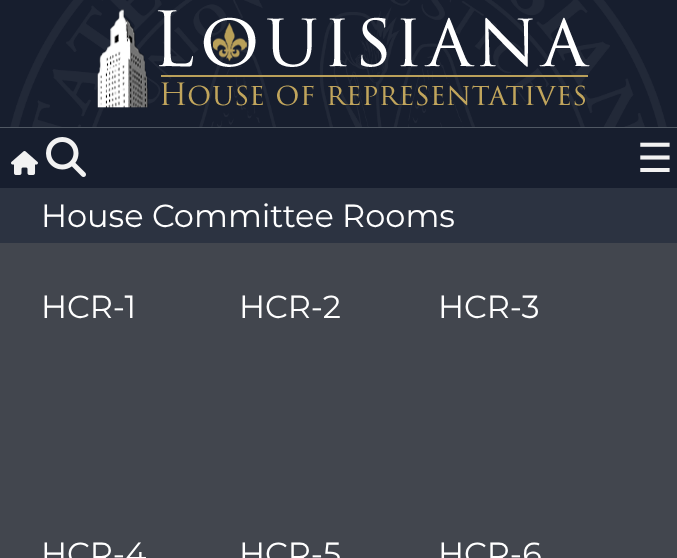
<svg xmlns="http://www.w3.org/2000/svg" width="677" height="558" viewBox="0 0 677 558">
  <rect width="100%" height="100%" fill="#171e2e"/>
  <image x="10" y="0" width="657" height="127" href="img/1.png"/>
  <path d="M0 127h677v1H0z" fill="#505863"/>
  <image x="97" y="9" width="493" height="99" href="img/2.png"/>
  <image x="11" y="151" width="27" height="24" href="img/3.png"/>
  <image x="46" y="137" width="40" height="40" href="img/4.png"/>
  <path d="M0 188h677v55H0z" fill="#2c3341"/>
  <path d="M0 243h677v315H0z" fill="#42464e"/>
  <text x="637" y="172" font-family="DejaVu Sans" font-size="40" fill="#f2f2f2">☰</text>
  <g font-family="Montserrat" font-size="32" font-weight="100" fill="#fff">
    <text x="41" y="227">House Committee Rooms</text>
    <text x="41" y="318">HCR-1</text>
    <text x="239" y="318">HCR-2</text>
    <text x="438" y="318">HCR-3</text>
    <text x="41" y="565">HCR-4</text>
    <text x="239" y="565">HCR-5</text>
    <text x="438" y="565">HCR-6</text>
  </g>
</svg>
